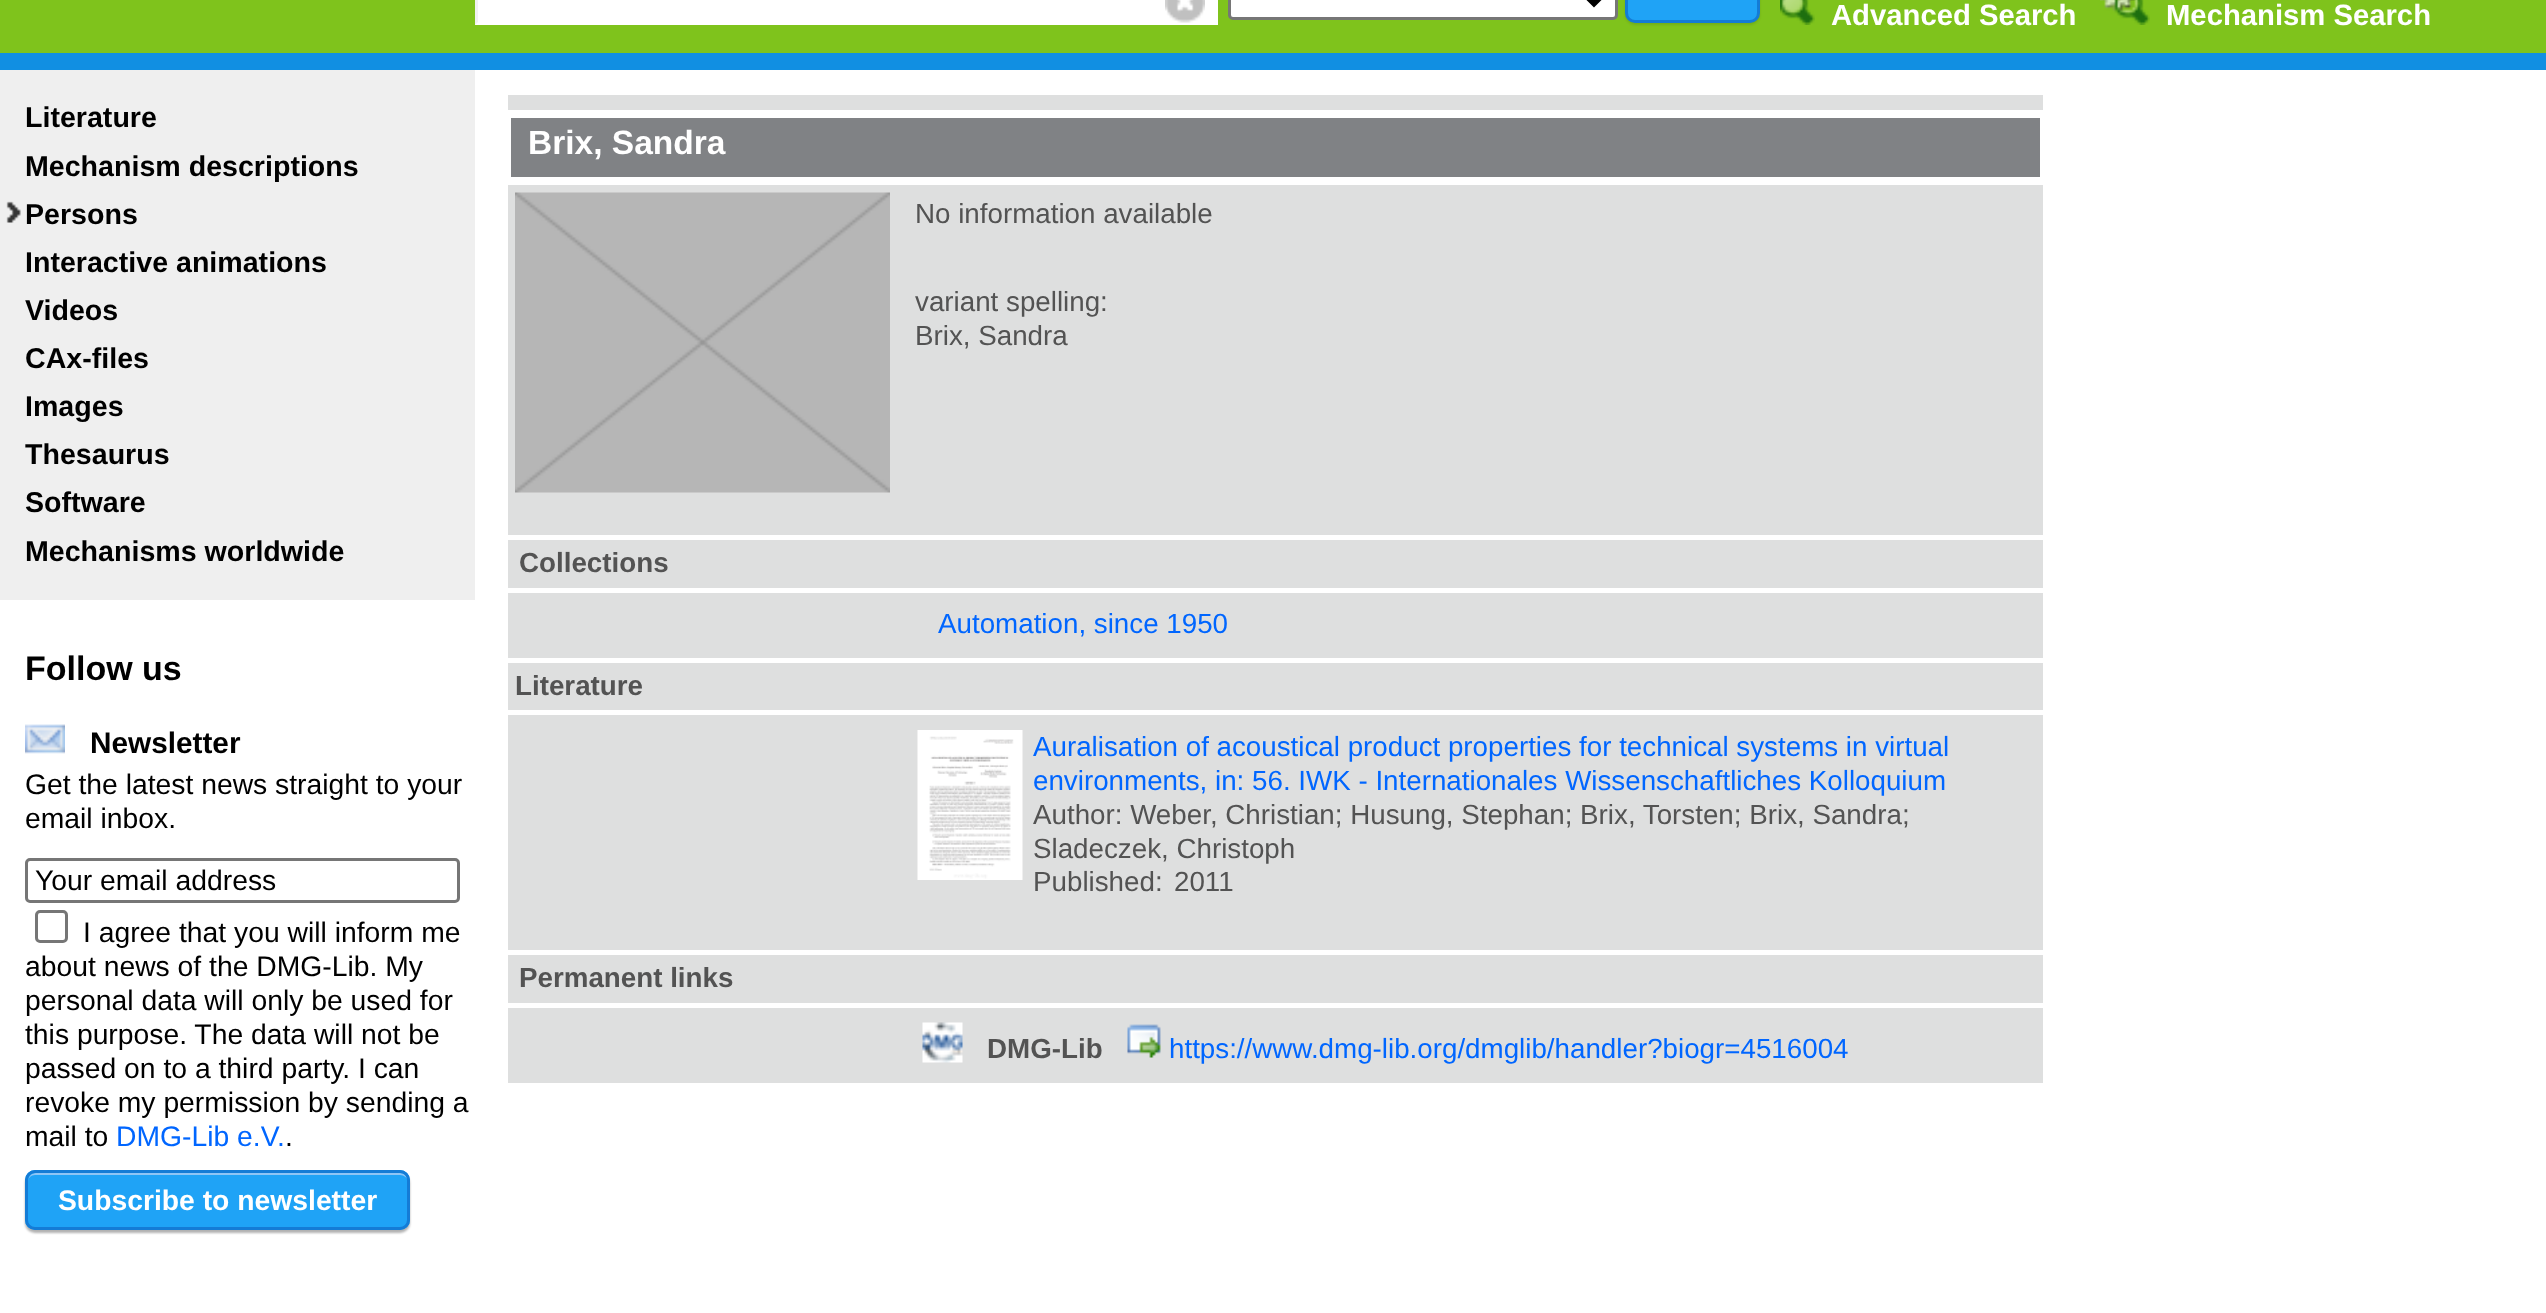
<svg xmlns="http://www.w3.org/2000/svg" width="2546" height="1313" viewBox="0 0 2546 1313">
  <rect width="100%" height="100%" fill="#fff"/>
  <path d="M0 0h2546v53H0z" fill="#7fc31c"/>
  <path d="M0 53h2546v17H0z" fill="#118fe2"/>
  <path d="M475 0h743v25H475z" fill="#fff"/>
  <path d="M475 25V-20L478-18V22Z" fill="#f1f1f1"/>
  <image x="1165" y="0" width="40" height="23" href="img/1.png"/>
  <rect x="1229.5" y="-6.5" width="387" height="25" rx="3.5" fill="#fff" stroke="#767676" stroke-width="3"/>
  <path d="M1584-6L1594 4L1604-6" fill="none" stroke="#000" stroke-width="5"/>
  <rect x="1625" y="-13" width="135" height="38" rx="10" fill="#0000001a" filter="blur(1px)"/>
  <rect x="1626.5" y="-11.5" width="132" height="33" rx="8.5" fill="#1fa3f6" stroke="#147cd6" stroke-width="3"/>
  <image x="1780" y="0" width="35" height="25" href="img/2.png"/>
  <image x="2100" y="0" width="50" height="25" href="img/3.png"/>
  <path d="M0 70h475v530H0z" fill="#efefef"/>
  <image x="6" y="201" width="15" height="22" href="img/4.png"/>
  <image x="25" y="724" width="40" height="30" href="img/5.png"/>
  <rect x="26.5" y="859.5" width="432" height="42" rx="3.5" fill="none" stroke="#767676" stroke-width="3"/>
  <rect x="36.5" y="911.5" width="30" height="30" rx="3.5" fill="none" stroke="#767676" stroke-width="3"/>
  <rect x="25" y="1173" width="385" height="60" rx="10" fill="#0000004d" filter="blur(1px)"/>
  <rect x="25" y="1170" width="385" height="60" rx="10" fill="#1fa3f6"/>
  <path d="M35 1175H400C404 1175 408 1178 408 1182C408 1177 405 1173 400 1173H36C31 1173 28 1177 28 1182C28 1178 31 1175 35 1175Z" fill="#8ec5f5"/>
  <rect x="26.5" y="1171.5" width="382" height="57" rx="8.5" fill="none" stroke="#147cd6" stroke-width="3"/>
  <path d="M508 95h1535v15H508z" fill="#dedfdf"/>
  <path d="M511 118h1529v59H511z" fill="#808285"/>
  <path d="M508 185h1535v350H508z" fill="#dedfdf"/>
  <image x="515" y="192" width="375" height="301" href="img/6.png"/>
  <path d="M508 540h1535v48H508z" fill="#dedfdf"/>
  <path d="M508 593h1535v65H508z" fill="#dedfdf"/>
  <path d="M508 663h1535v47H508z" fill="#dedfdf"/>
  <path d="M508 715h1535v235H508z" fill="#dedfdf"/>
  <image x="917" y="730" width="106" height="150" href="img/7.png"/>
  <path d="M508 955h1535v48H508z" fill="#dedfdf"/>
  <path d="M508 1008h1535v75H508z" fill="#dedfdf"/>
  <image x="922" y="1022" width="41" height="41" href="img/8.png"/>
  <image x="1127" y="1024" width="34" height="34" href="img/9.png"/>
  <g font-family="Liberation Sans" font-size="29.25" font-weight="bold" fill="#fff">
    <text x="1831" y="25">Advanced Search</text>
    <text x="2166" y="25">Mechanism Search</text>
  </g>
  <g font-family="Liberation Sans" font-size="28.6" font-weight="bold" fill="#000">
    <text x="25" y="127">Literature</text>
    <text x="25" y="176">Mechanism descriptions</text>
    <text x="25" y="224">Persons</text>
    <text x="25" y="272">Interactive animations</text>
    <text x="25" y="320">Videos</text>
    <text x="25" y="368">CAx-files</text>
    <text x="25" y="416">Images</text>
    <text x="25" y="464">Thesaurus</text>
    <text x="25" y="512">Software</text>
    <text x="25" y="561">Mechanisms worldwide</text>
  </g>
  <text x="25" y="680" font-family="Liberation Sans" font-size="34" font-weight="bold" fill="#000">Follow us</text>
  <text x="90" y="753" font-family="Liberation Sans" font-size="29.75" font-weight="bold" fill="#000">Newsletter</text>
  <g font-family="Liberation Sans" font-size="28.3" fill="#000">
    <text x="25" y="794">Get the latest news straight to your</text>
    <text x="25" y="828">email inbox.</text>
    <text x="35" y="890">Your email address</text>
    <text x="83" y="942">I agree that you will inform me</text>
    <text x="25" y="976">about news of the DMG-Lib. My</text>
    <text x="25" y="1010">personal data will only be used for</text>
    <text x="25" y="1044">this purpose. The data will not be</text>
    <text x="25" y="1078">passed on to a third party. I can</text>
    <text x="25" y="1112">revoke my permission by sending a</text>
    <text x="25" y="1146">mail to</text>
  </g>
  <text x="116" y="1146" font-family="Liberation Sans" font-size="28.3" fill="#06f">DMG-Lib e.V.</text>
  <text x="285" y="1146" font-family="Liberation Sans" font-size="28.3" fill="#000">.</text>
  <text x="58" y="1210" font-family="Liberation Sans" font-size="28.3" font-weight="bold" fill="#fff">Subscribe to newsletter</text>
  <text x="528" y="154" font-family="Liberation Sans" font-size="33.5" font-weight="bold" fill="#fff">Brix, Sandra</text>
  <g font-family="Liberation Sans" font-size="27.75" fill="#535353">
    <text x="915" y="223">No information available</text>
    <text x="915" y="311">variant spelling:</text>
    <text x="915" y="345">Brix, Sandra</text>
  </g>
  <text x="519" y="572" font-family="Liberation Sans" font-size="27.75" font-weight="bold" fill="#535353">Collections</text>
  <text x="938" y="633" font-family="Liberation Sans" font-size="27.75" fill="#06f">Automation, since 1950</text>
  <text x="515" y="695" font-family="Liberation Sans" font-size="27.75" font-weight="bold" fill="#535353">Literature</text>
  <g font-family="Liberation Sans" font-size="27.75" fill="#06f">
    <text x="1033" y="756">Auralisation of acoustical product properties for technical systems in virtual</text>
    <text x="1033" y="790">environments, in: 56. IWK - Internationales Wissenschaftliches Kolloquium</text>
  </g>
  <g font-family="Liberation Sans" font-size="27.75" fill="#535353">
    <text x="1033" y="824">Author: Weber, Christian; Husung, Stephan; Brix, Torsten; Brix, Sandra;</text>
    <text x="1033" y="858">Sladeczek, Christoph</text>
    <text x="1033" y="891">Published:</text>
    <text x="1174" y="891">2011</text>
  </g>
  <g font-family="Liberation Sans" font-size="27.75" font-weight="bold" fill="#535353">
    <text x="519" y="987">Permanent links</text>
    <text x="987" y="1058">DMG-Lib</text>
  </g>
  <text x="1169" y="1058" font-family="Liberation Sans" font-size="27.75" fill="#06f">https://www.dmg-lib.org/dmglib/handler?biogr=4516004</text>
</svg>
